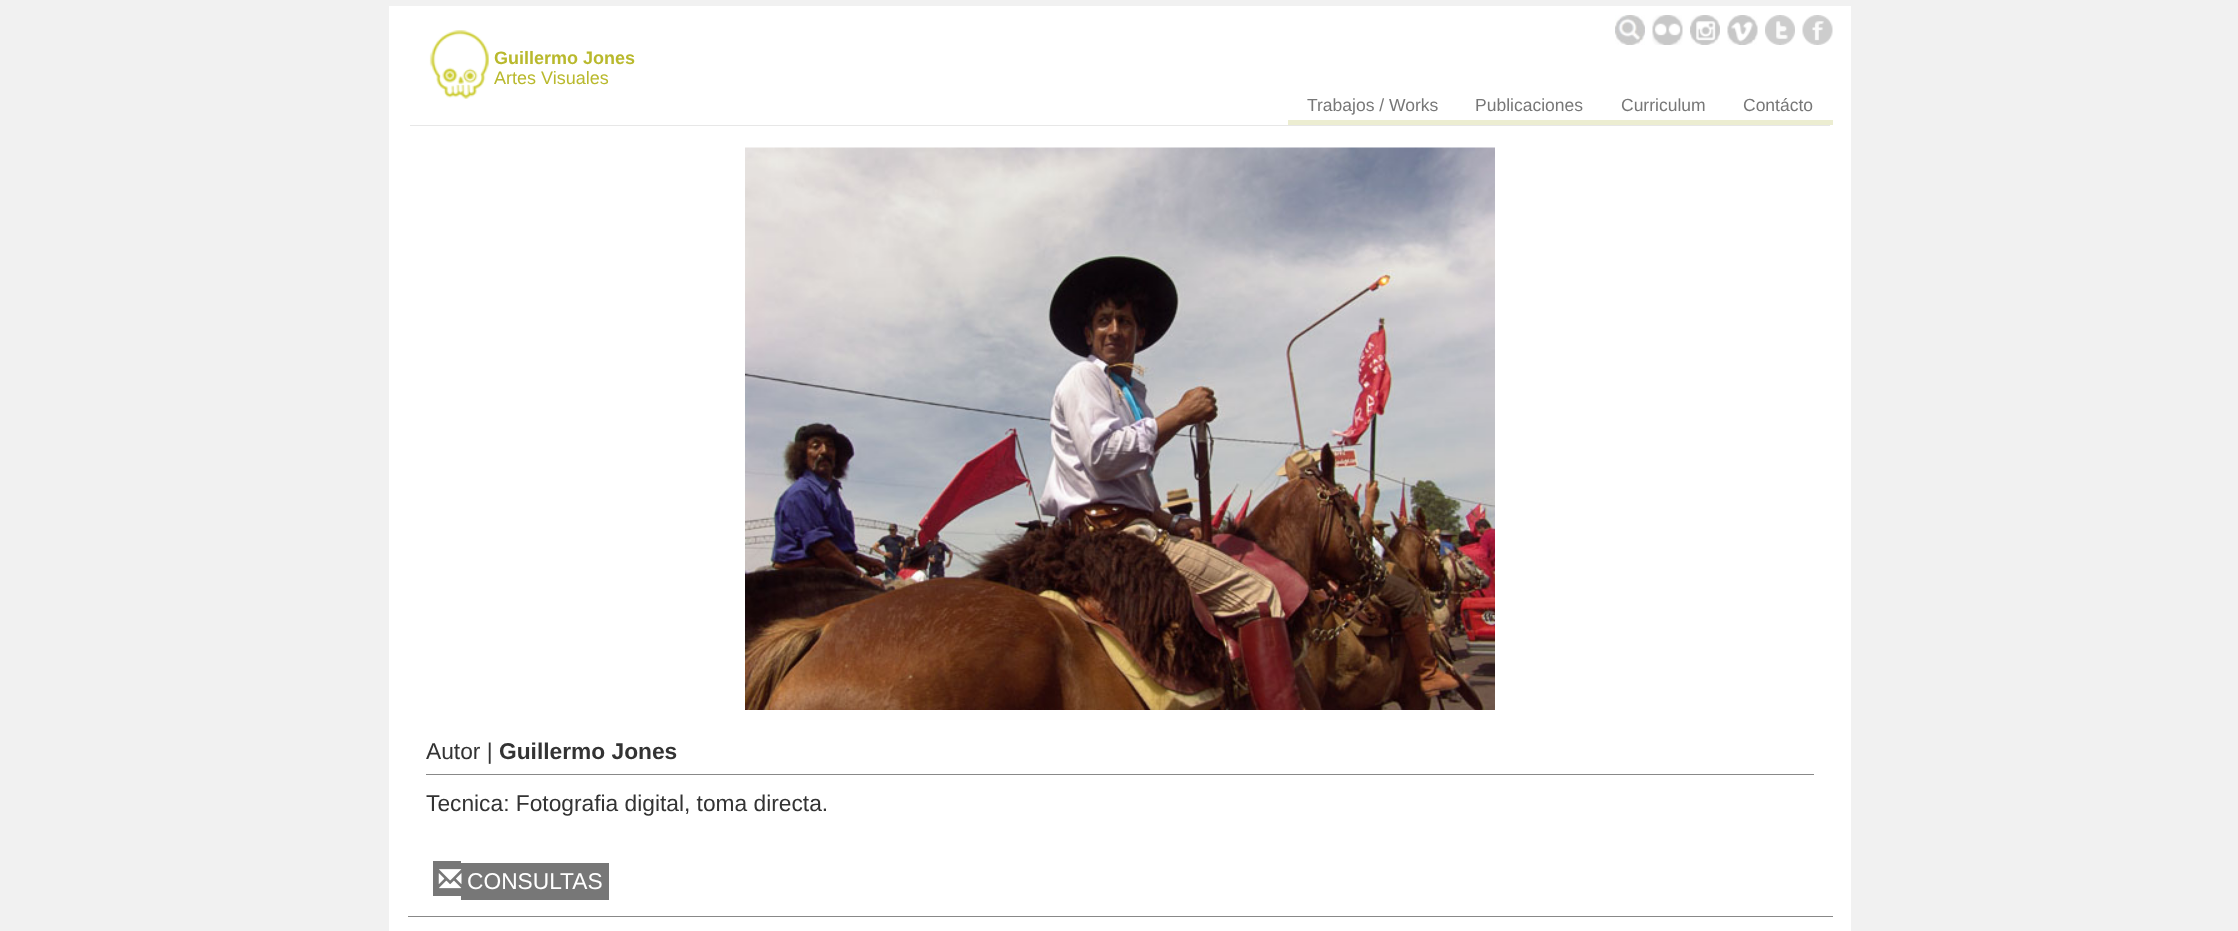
<svg xmlns="http://www.w3.org/2000/svg" width="2238" height="931" viewBox="0 0 2238 931">
  <rect width="100%" height="100%" fill="#f1f1f1"/>
  <path d="M389 6h1462v925H389z" fill="#fff"/>
  <image x="1615" y="15" width="30" height="30" href="img/1.png"/>
  <image x="1652" y="15" width="31" height="30" href="img/2.png"/>
  <image x="1690" y="15" width="30" height="30" href="img/3.png"/>
  <image x="1727" y="15" width="31" height="30" href="img/4.png"/>
  <image x="1765" y="15" width="30" height="30" href="img/5.png"/>
  <image x="1802" y="15" width="31" height="30" href="img/6.png"/>
  <path d="M410 125h1420v1H410z" fill="#e7e7e7"/>
  <image x="429" y="30" width="60" height="69" href="img/7.png"/>
  <path d="M1288 120h545v5H1288z" fill="#ecedd1"/>
  <image x="745" y="147" width="750" height="563" href="img/8.png"/>
  <path d="M408 916h1425v1H408z" fill="#888"/>
  <path d="M426 774h1388v1H426z" fill="#888"/>
  <path d="M433 861h28v35H433z" fill="#777"/>
  <path d="M461 863h148v37H461z" fill="#777"/>
  <image x="438" y="869" width="24" height="20" href="img/9.png"/>
  <text x="494" y="64" font-family="Liberation Sans" font-size="18" font-weight="bold" fill="#b9b92d">Guillermo Jones</text>
  <text x="494" y="84" font-family="Liberation Sans" font-size="18" fill="#b9b92d">Artes Visuales</text>
  <g font-family="Liberation Sans" font-size="17.5" fill="#777">
    <text x="1307" y="111">Trabajos / Works</text>
    <text x="1475" y="111">Publicaciones</text>
    <text x="1621" y="111">Curriculum</text>
    <text x="1743" y="111">Contácto</text>
  </g>
  <text x="426" y="759" font-family="Liberation Sans" font-size="22.75" fill="#333">Autor |</text>
  <text x="499" y="759" font-family="Liberation Sans" font-size="22.75" font-weight="bold" fill="#333">Guillermo Jones</text>
  <text x="426" y="811" font-family="Liberation Sans" font-size="22.75" fill="#333">Tecnica: Fotografia digital, toma directa.</text>
  <text x="467" y="889" font-family="Liberation Sans" font-size="22.75" fill="#fff">CONSULTAS</text>
</svg>
